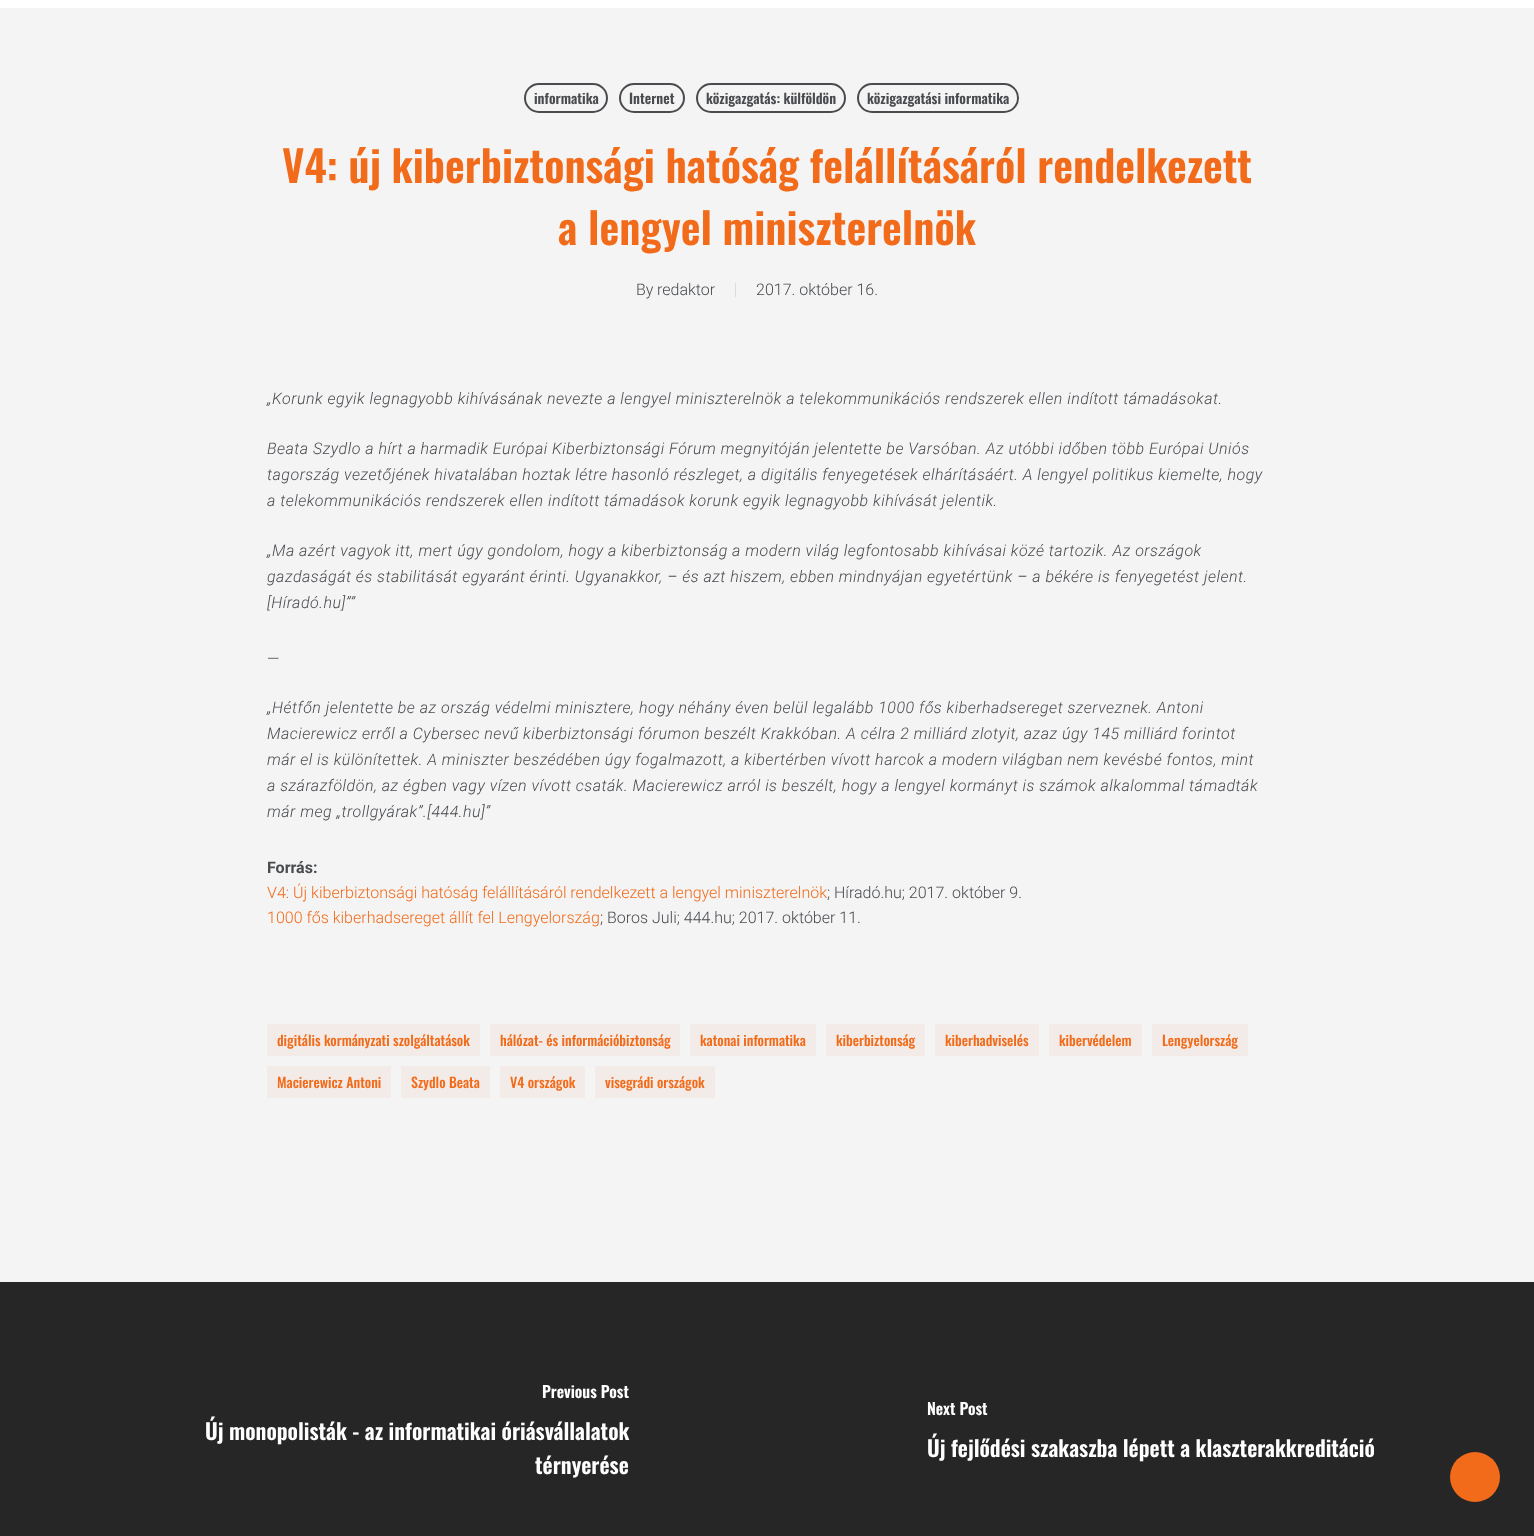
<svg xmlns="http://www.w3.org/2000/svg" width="1534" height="1536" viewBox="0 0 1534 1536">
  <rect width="100%" height="100%" fill="#f4f4f4"/>
  <path d="M0 0h1534v8H0z" fill="#fff"/>
  <rect x="525" y="84" width="82" height="28" rx="14" fill="none" stroke="#494b4f" stroke-width="2"/>
  <rect x="620" y="84" width="64" height="28" rx="14" fill="none" stroke="#494b4f" stroke-width="2"/>
  <rect x="697" y="84" width="148" height="28" rx="14" fill="none" stroke="#494b4f" stroke-width="2"/>
  <rect x="858" y="84" width="160" height="28" rx="14" fill="none" stroke="#494b4f" stroke-width="2"/>
  <path d="M735 283h1v14H735z" fill="#dcdcdc"/>
  <path d="M267 1024h213v32H267z" fill="#f26b1a0f"/>
  <path d="M490 1024h190v32H490z" fill="#f26b1a0f"/>
  <path d="M690 1024h126v32H690z" fill="#f26b1a0f"/>
  <path d="M826 1024h99v32H826z" fill="#f26b1a0f"/>
  <path d="M935 1024h104v32H935z" fill="#f26b1a0f"/>
  <path d="M1049 1024h93v32H1049z" fill="#f26b1a0f"/>
  <path d="M1152 1024h96v32H1152z" fill="#f26b1a0f"/>
  <path d="M267 1066h124v32H267z" fill="#f26b1a0f"/>
  <path d="M401 1066h89v32H401z" fill="#f26b1a0f"/>
  <path d="M500 1066h85v32H500z" fill="#f26b1a0f"/>
  <path d="M595 1066h120v32H595z" fill="#f26b1a0f"/>
  <path d="M0 1282h1534v254H0z" fill="#262626"/>
  <circle cx="1475" cy="1477" r="25" fill="#f26b1a"/>
  <g font-family="Oswald" font-size="14" font-weight="600" fill="#494b4f">
    <text x="534" y="104">informatika</text>
    <text x="629" y="104">Internet</text>
    <text x="706" y="104">közigazgatás: külföldön</text>
    <text x="867" y="104">közigazgatási informatika</text>
  </g>
  <g font-family="Oswald" font-size="43" font-weight="600" fill="#f26b1a">
    <text x="282" y="183">V4: új kiberbiztonsági hatóság felállításáról rendelkezett</text>
    <text x="558" y="245">a lengyel miniszterelnök</text>
  </g>
  <g font-family="Roboto" font-size="16" font-weight="300" fill="#494b4f">
    <text x="636" y="295">By</text>
    <text x="657" y="295">redaktor</text>
    <text x="756" y="295">2017. október 16.</text>
  </g>
  <g font-family="Roboto" font-size="16" font-weight="300" font-style="italic" letter-spacing="0.5" fill="#494b4f">
    <text x="267" y="404">„Korunk egyik legnagyobb kihívásának nevezte a lengyel miniszterelnök a telekommunikációs rendszerek ellen indított támadásokat.</text>
    <text x="267" y="454">Beata Szydlo a hírt a harmadik Európai Kiberbiztonsági Fórum megnyitóján jelentette be Varsóban. Az utóbbi időben több Európai Uniós</text>
    <text x="267" y="480">tagország vezetőjének hivatalában hoztak létre hasonló részleget, a digitális fenyegetések elhárításáért. A lengyel politikus kiemelte, hogy</text>
    <text x="267" y="506">a telekommunikációs rendszerek ellen indított támadások korunk egyik legnagyobb kihívását jelentik.</text>
    <text x="267" y="556">„Ma azért vagyok itt, mert úgy gondolom, hogy a kiberbiztonság a modern világ legfontosabb kihívásai közé tartozik. Az országok</text>
    <text x="267" y="582">gazdaságát és stabilitását egyaránt érinti. Ugyanakkor, – és azt hiszem, ebben mindnyájan egyetértünk – a békére is fenyegetést jelent.</text>
    <text x="267" y="608">[Híradó.hu]””</text>
  </g>
  <text x="267" y="664" font-family="Roboto" font-size="16" font-weight="300" fill="#494b4f">—</text>
  <g font-family="Roboto" font-size="16" font-weight="300" font-style="italic" letter-spacing="0.5" fill="#494b4f">
    <text x="267" y="713">„Hétfőn jelentette be az ország védelmi minisztere, hogy néhány éven belül legalább 1000 fős kiberhadsereget szerveznek. Antoni</text>
    <text x="267" y="739">Macierewicz erről a Cybersec nevű kiberbiztonsági fórumon beszélt Krakkóban. A célra 2 milliárd zlotyit, azaz úgy 145 milliárd forintot</text>
    <text x="267" y="765">már el is különítettek. A miniszter beszédében úgy fogalmazott, a kibertérben vívott harcok a modern világban nem kevésbé fontos, mint</text>
    <text x="267" y="791">a szárazföldön, az égben vagy vízen vívott csaták. Macierewicz arról is beszélt, hogy a lengyel kormányt is számok alkalommal támadták</text>
    <text x="267" y="817">már meg „trollgyárak”.[444.hu]”</text>
  </g>
  <text x="267" y="873" font-family="Roboto" font-size="16" font-weight="bold" fill="#494b4f">Forrás:</text>
  <text x="267" y="898" font-family="Roboto" font-size="16" font-weight="300" fill="#f26b1a">V4: Új kiberbiztonsági hatóság felállításáról rendelkezett a lengyel miniszterelnök</text>
  <text x="827" y="898" font-family="Roboto" font-size="16" font-weight="300" fill="#494b4f">; Híradó.hu; 2017. október 9.</text>
  <text x="267" y="923" font-family="Roboto" font-size="16" font-weight="300" fill="#f26b1a">1000 fős kiberhadsereget állít fel Lengyelország</text>
  <text x="600" y="923" font-family="Roboto" font-size="16" font-weight="300" fill="#494b4f">; Boros Juli; 444.hu; 2017. október 11.</text>
  <g font-family="Oswald" font-size="14" font-weight="500" fill="#f26b1a">
    <text x="277" y="1046">digitális kormányzati szolgáltatások</text>
    <text x="500" y="1046">hálózat- és információbiztonság</text>
    <text x="700" y="1046">katonai informatika</text>
    <text x="836" y="1046">kiberbiztonság</text>
    <text x="945" y="1046">kiberhadviselés</text>
    <text x="1059" y="1046">kibervédelem</text>
    <text x="1162" y="1046">Lengyelország</text>
    <text x="277" y="1088">Macierewicz Antoni</text>
    <text x="411" y="1088">Szydlo Beata</text>
    <text x="510" y="1088">V4 országok</text>
    <text x="605" y="1088">visegrádi országok</text>
  </g>
  <text x="542" y="1398" font-family="Oswald" font-size="16" font-weight="600" fill="#fff">Previous Post</text>
  <g font-family="Oswald" font-size="22" font-weight="600" fill="#fff">
    <text x="205" y="1440">Új monopolisták - az informatikai óriásvállalatok</text>
    <text x="535" y="1474">térnyerése</text>
  </g>
  <text x="927" y="1415" font-family="Oswald" font-size="16" font-weight="600" fill="#fff">Next Post</text>
  <text x="927" y="1457" font-family="Oswald" font-size="22" font-weight="600" fill="#fff">Új fejlődési szakaszba lépett a klaszterakkreditáció</text>
</svg>
